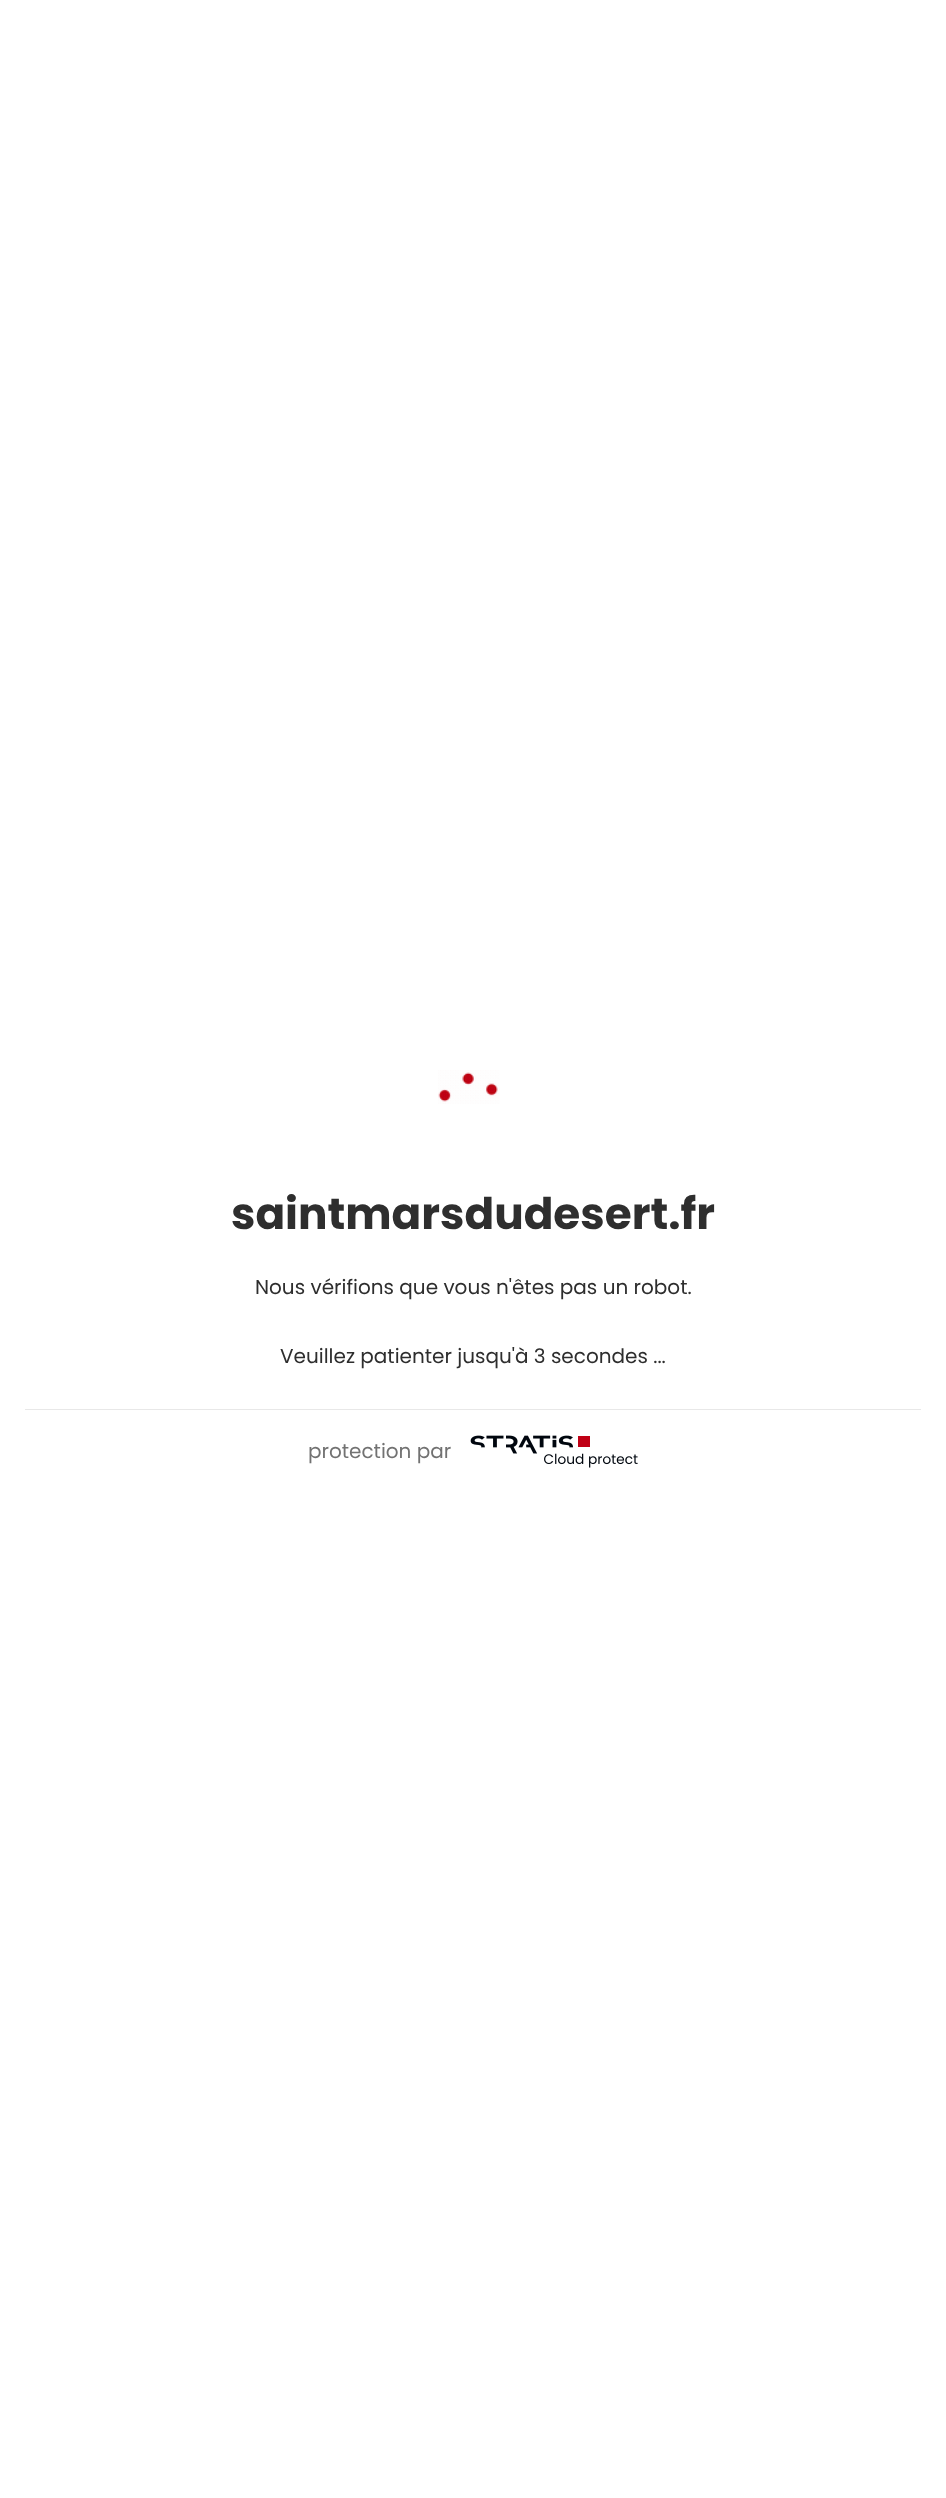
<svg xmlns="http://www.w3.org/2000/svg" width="946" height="2498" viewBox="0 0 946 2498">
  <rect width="100%" height="100%" fill="#fff"/>
  <image x="438" y="1070" width="62" height="34" href="img/1.png"/>
  <path d="M25 1409h896v1H25z" fill="#e8e8e8"/>
  <image x="470" y="1435" width="168" height="33" href="img/2.png"/>
  <text x="231" y="1229" font-family="Poppins" font-size="43.75" font-weight="bold" fill="#2e2e2e">saintmarsdudesert.fr</text>
  <g font-family="Poppins" font-size="20" fill="#2e2e2e">
    <text x="255" y="1294">Nous vérifions que vous n'êtes pas un robot.</text>
    <text x="280" y="1363">Veuillez patienter jusqu'à 3 secondes ...</text>
  </g>
  <text x="308" y="1458" font-family="Poppins" font-size="20" fill="#727272">protection par</text>
</svg>
